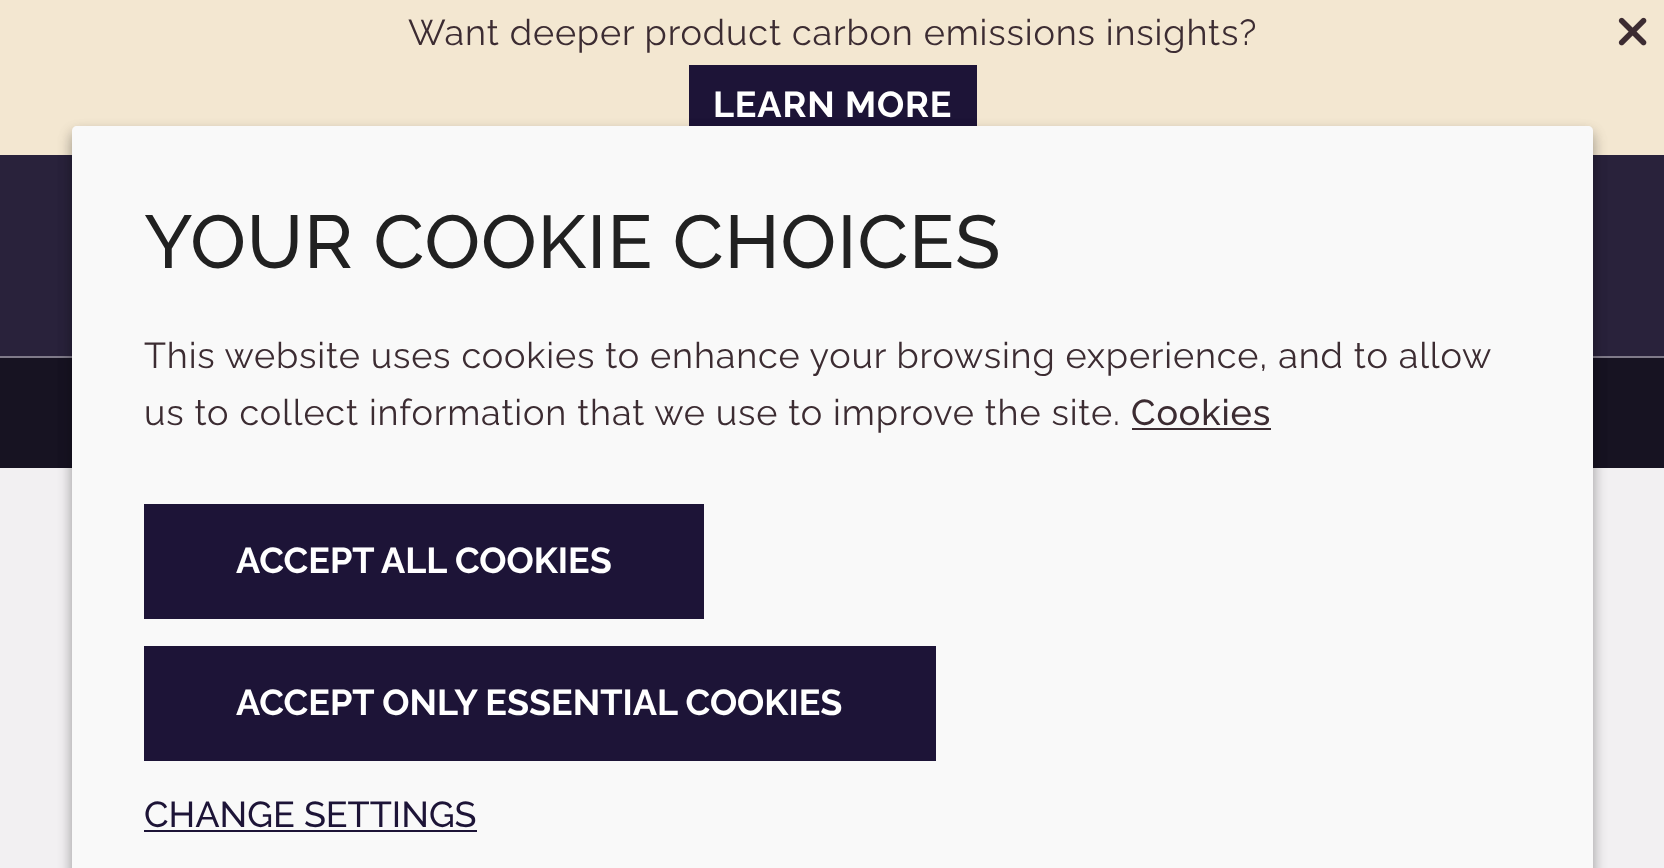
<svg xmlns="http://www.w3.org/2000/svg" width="1664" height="868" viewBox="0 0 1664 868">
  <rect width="100%" height="100%" fill="#f2f0f2"/>
  <path d="M0 0h1664v155H0z" fill="#f3e7d1"/>
  <path d="M689 65h288v61H689z" fill="#1d1437"/>
  <image x="1618" y="17" width="29" height="29" href="img/1.png"/>
  <path d="M0 155h1664v201H0z" fill="#29223b"/>
  <path d="M0 356h1664v2H0z" fill="#7f7a89"/>
  <path d="M0 358h1664v110H0z" fill="#171322"/>
  <rect x="72" y="133" width="1521" height="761" rx="5" fill="#0000003b" filter="blur(7px)"/>
  <rect x="72" y="133" width="1521" height="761" rx="5" fill="#00000029" filter="blur(7px)"/>
  <path d="M77 126H1588C1591 126 1593 128 1593 131V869H72V131C72 128 74 126 77 126Z" fill="#f9f9f9"/>
  <path d="M1132 428h139v2H1132z" fill="#3c2c32"/>
  <path d="M144 504h560v115H144z" fill="#1d1437"/>
  <path d="M144 646h792v115H144z" fill="#1d1437"/>
  <path d="M144 830h333v2H144z" fill="#1d1437"/>
  <text x="408" y="45" font-family="Raleway" font-size="36" letter-spacing="0.85" fill="#3c2c32">Want deeper product carbon emissions insights?</text>
  <text x="713" y="117" font-family="Raleway" font-size="36" font-weight="bold" letter-spacing="0.85" fill="#fff">LEARN MORE</text>
  <text x="144" y="268" font-family="Raleway" font-size="74.5" font-weight="500" letter-spacing="0.85" fill="#212121">YOUR COOKIE CHOICES</text>
  <g font-family="Raleway" font-size="36" letter-spacing="0.85" fill="#3c2c32">
    <text x="144" y="368">This website uses cookies to enhance your browsing experience, and to allow</text>
    <text x="144" y="425">us to collect information that we use to improve the site.</text>
  </g>
  <text x="1131" y="425" font-family="Raleway" font-size="36" font-weight="500" letter-spacing="0.85" fill="#3c2c32">Cookies</text>
  <g font-family="Raleway" font-size="36" font-weight="bold" fill="#fff">
    <text x="236" y="573">ACCEPT ALL COOKIES</text>
    <text x="236" y="715">ACCEPT ONLY ESSENTIAL COOKIES</text>
  </g>
  <text x="144" y="827" font-family="Raleway" font-size="36" font-weight="500" fill="#1d1437">CHANGE SETTINGS</text>
</svg>
